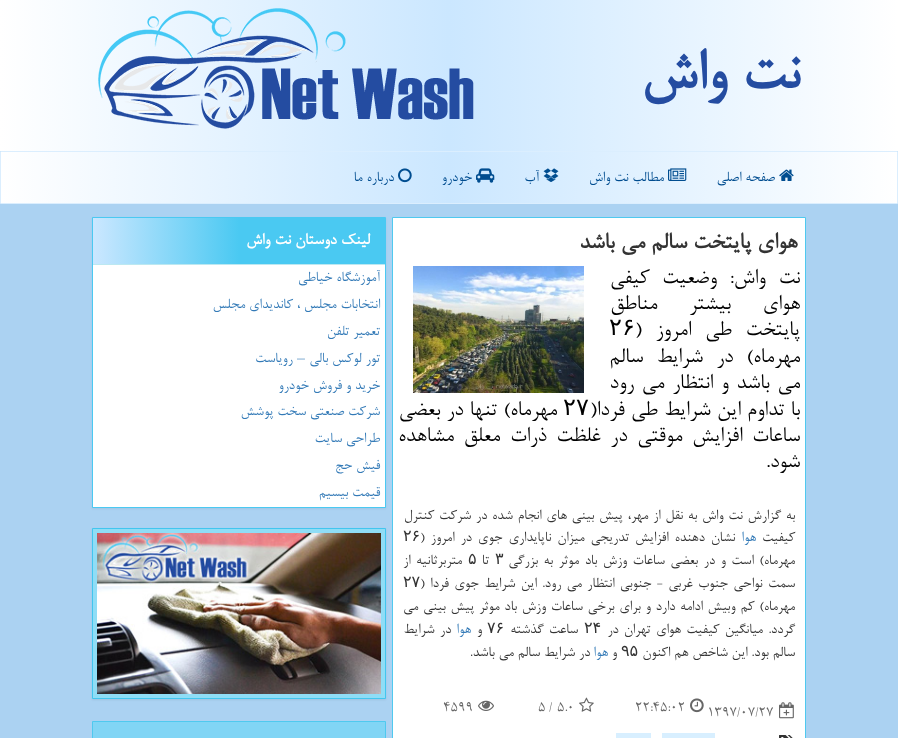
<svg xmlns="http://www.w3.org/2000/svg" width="898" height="738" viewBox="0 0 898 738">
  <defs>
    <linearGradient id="g1" gradientUnits="userSpaceOnUse" x1="0" y1="76" x2="898" y2="75"><stop offset="0" stop-color="#fff"/><stop offset="0.5" stop-color="#cbe7ff"/><stop offset="1" stop-color="#fff"/></linearGradient>
    <linearGradient id="g2" gradientUnits="userSpaceOnUse" x1="1" y1="178" x2="897" y2="177"><stop offset="0" stop-color="#fff"/><stop offset="0.5" stop-color="#cbe7ff"/><stop offset="1" stop-color="#fff"/></linearGradient>
    <linearGradient id="g3" gradientUnits="userSpaceOnUse" x1="93" y1="241" x2="385" y2="241"><stop offset="0" stop-color="#cbe7ff"/><stop offset="0.5" stop-color="#4ac9f2"/><stop offset="1" stop-color="#4ac9f2"/></linearGradient>
  </defs>
  <rect width="100%" height="100%" fill="#abd2f2"/>
  <path d="M0 0h898v151H0z" fill="url(#g1)"/>
  <image x="98" y="8" width="376" height="121" href="img/1.png"/>
  <path d="M1 152h896v51H1z" fill="url(#g2)"/>
  <path d="M0.5 151.5h897v52H0.5z" fill="none" stroke="#dbeefe"/>
  <image x="779" y="169" width="15" height="12" href="img/2.png"/>
  <image x="668" y="168" width="19" height="13" href="img/3.png"/>
  <image x="543" y="168" width="16" height="14" href="img/4.png"/>
  <image x="476" y="168" width="19" height="15" href="img/5.png"/>
  <image x="398" y="168" width="14" height="15" href="img/6.png"/>
  <path d="M392.5 217.5h413v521H392.5z" fill="#fff" stroke="#4fc9ef"/>
  <image x="413" y="266" width="171" height="127" href="img/7.png"/>
  <image x="779" y="702" width="15" height="17" href="img/8.png"/>
  <image x="690" y="698" width="14" height="15" href="img/9.png"/>
  <image x="579" y="697" width="15" height="15" href="img/10.png"/>
  <image x="478" y="700" width="16" height="11" href="img/11.png"/>
  <image x="779" y="735" width="14" height="3" href="img/12.png"/>
  <path d="M662 733h53v5H662z" fill="#d8efff"/>
  <path d="M616 733h35v5H616z" fill="#d8efff"/>
  <path d="M92 218h294v291H92z" fill="#0000000d" filter="blur(1px)"/>
  <path d="M93 265h292v242H93z" fill="#fff"/>
  <path d="M92.5 217.5h293v290H92.5z" fill="none" stroke="#4ac9f2"/>
  <path d="M93 218h292v46H93z" fill="url(#g3)"/>
  <path d="M93 264h292v1H93z" fill="#bce8f1"/>
  <path d="M92 529h294v171H92z" fill="#00000012" filter="blur(1px)"/>
  <path d="M92.5 528.5h293v170H92.5z" fill="#8fddf6" stroke="#42c6ef"/>
  <image x="97" y="533" width="284" height="161" href="img/13.png"/>
  <path d="M92.5 721.5h293v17H92.5z" fill="none" stroke="#4fc9ef"/>
  <path d="M93 722h292v16H93z" fill="#81d5f5"/>
  <text x="799" y="88" font-family="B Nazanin" font-size="64" font-weight="bold" direction="rtl" fill="#244ca1">نت واش</text>
  <g font-family="B Nazanin" font-size="16" direction="rtl" fill="#004d90">
    <text x="775" y="181">صفحه اصلی</text>
    <text x="664" y="181">مطالب نت واش</text>
    <text x="539" y="181">آب</text>
    <text x="472" y="181">خودرو</text>
    <text x="394" y="181">درباره ما</text>
  </g>
  <text x="797" y="248" font-family="B Nazanin" font-size="25.5" font-weight="bold" direction="rtl" fill="#333">هوای پایتخت سالم می باشد</text>
  <g font-family="B Nazanin" font-size="24" direction="rtl" fill="#000">
    <text x="800" y="283" word-spacing="7">نت واش: وضعیت كیفی</text>
    <text x="800" y="309" word-spacing="26">هوای بیشتر مناطق</text>
    <text x="800" y="335" word-spacing="8">پایتخت طی امروز (</text>
  </g>
  <text x="609" y="335" font-family="DejaVu Sans" font-size="24" fill="#000">۲۶</text>
  <g font-family="B Nazanin" font-size="24" direction="rtl" fill="#000">
    <text x="800" y="362" word-spacing="7.5">مهرماه) در شرایط سالم</text>
    <text x="800" y="388" word-spacing="2">می باشد و انتظار می رود</text>
    <text x="800" y="415" word-spacing="0.5">با تداوم این شرایط طی فردا(</text>
  </g>
  <text x="563" y="415" font-family="DejaVu Sans" font-size="24" fill="#000">۲۷</text>
  <g font-family="B Nazanin" font-size="24" direction="rtl" fill="#000">
    <text x="557" y="415" word-spacing="0.5">مهرماه) تنها در بعضی</text>
    <text x="800" y="441" word-spacing="4">ساعات افزایش موقتی در غلظت ذرات معلق مشاهده</text>
    <text x="800" y="467">شود.</text>
  </g>
  <g font-family="B Nazanin" font-size="16" direction="rtl" fill="#333">
    <text x="795" y="519" word-spacing="1">به گزارش نت واش به نقل از مهر، پیش بینی های انجام شده در شركت كنترل</text>
    <text x="795" y="541">كیفیت</text>
  </g>
  <text x="756" y="541" font-family="B Nazanin" font-size="16" direction="rtl" fill="#337ab7">هوا</text>
  <text x="735" y="541" word-spacing="2.25" font-family="B Nazanin" font-size="16" direction="rtl" fill="#333">نشان دهنده افزایش تدریجی میزان ناپایداری جوی در امروز (</text>
  <text x="403" y="541" font-family="DejaVu Sans" font-size="16" fill="#333">۲۶</text>
  <text x="795" y="564" word-spacing="1.75" font-family="B Nazanin" font-size="16" direction="rtl" fill="#333">مهرماه) است و در بعضی ساعات وزش باد موثر به بزرگی</text>
  <text x="495" y="564" font-family="DejaVu Sans" font-size="16" fill="#333">۳</text>
  <text x="489" y="564" font-family="B Nazanin" font-size="16" direction="rtl" fill="#333">تا</text>
  <text x="468" y="564" font-family="DejaVu Sans" font-size="16" fill="#333">۵</text>
  <g font-family="B Nazanin" font-size="16" direction="rtl" fill="#333">
    <text x="462" y="564" word-spacing="1.75">متربرثانیه از</text>
    <text x="795" y="587" word-spacing="1.6">سمت نواحی جنوب غربی - جنوبی انتظار می رود. این شرایط جوی فردا (</text>
  </g>
  <text x="403" y="587" font-family="DejaVu Sans" font-size="16" fill="#333">۲۷</text>
  <g font-family="B Nazanin" font-size="16" direction="rtl" fill="#333">
    <text x="795" y="610" word-spacing="1">مهرماه) كم وبیش ادامه دارد و برای برخی ساعات وزش باد موثر پیش بینی می</text>
    <text x="795" y="633" word-spacing="1.5">گردد. میانگین كیفیت هوای تهران در</text>
  </g>
  <text x="584" y="633" font-family="DejaVu Sans" font-size="16" fill="#333">۲۴</text>
  <text x="578" y="633" word-spacing="1.5" font-family="B Nazanin" font-size="16" direction="rtl" fill="#333">ساعت گذشته</text>
  <text x="487" y="633" font-family="DejaVu Sans" font-size="16" fill="#333">۷۶</text>
  <text x="482" y="633" font-family="B Nazanin" font-size="16" direction="rtl" fill="#333">و</text>
  <text x="471" y="633" font-family="B Nazanin" font-size="16" direction="rtl" fill="#337ab7">هوا</text>
  <g font-family="B Nazanin" font-size="16" direction="rtl" fill="#333">
    <text x="451" y="633" word-spacing="1.5">در شرایط</text>
    <text x="795" y="656">سالم بود. این شاخص هم اكنون</text>
  </g>
  <text x="621" y="656" font-family="DejaVu Sans" font-size="16" fill="#333">۹۵</text>
  <text x="617" y="656" font-family="B Nazanin" font-size="16" direction="rtl" fill="#333">و</text>
  <text x="608" y="656" font-family="B Nazanin" font-size="16" direction="rtl" fill="#337ab7">هوا</text>
  <text x="590" y="656" font-family="B Nazanin" font-size="16" direction="rtl" fill="#333">در شرایط سالم می باشد.</text>
  <g font-family="B Nazanin" font-size="16" fill="#666">
    <text x="707" y="716">1397/07/27</text>
    <text x="635" y="711">22:45:02</text>
    <text x="557" y="711">5.0</text>
    <text x="549" y="711">/</text>
    <text x="538" y="711">5</text>
    <text x="443" y="711">4599</text>
  </g>
  <text x="370" y="244" font-family="B Nazanin" font-size="18" font-weight="bold" direction="rtl" fill="#fff">لینک دوستان نت واش</text>
  <g font-family="B Nazanin" font-size="16" direction="rtl" fill="#337ab7">
    <text x="380" y="281">آموزشگاه خیاطی</text>
    <text x="380" y="308">انتخابات مجلس ، کاندیدای مجلس</text>
    <text x="380" y="335">تعمیر تلفن</text>
    <text x="380" y="362">تور لوکس بالی – رویاست</text>
    <text x="380" y="389">خرید و فروش خودرو</text>
    <text x="380" y="415">شرکت صنعتی سخت پوشش</text>
    <text x="380" y="442">طراحی سایت</text>
    <text x="380" y="469">فیش حج</text>
    <text x="380" y="496">قیمت بیسیم</text>
  </g>
</svg>
